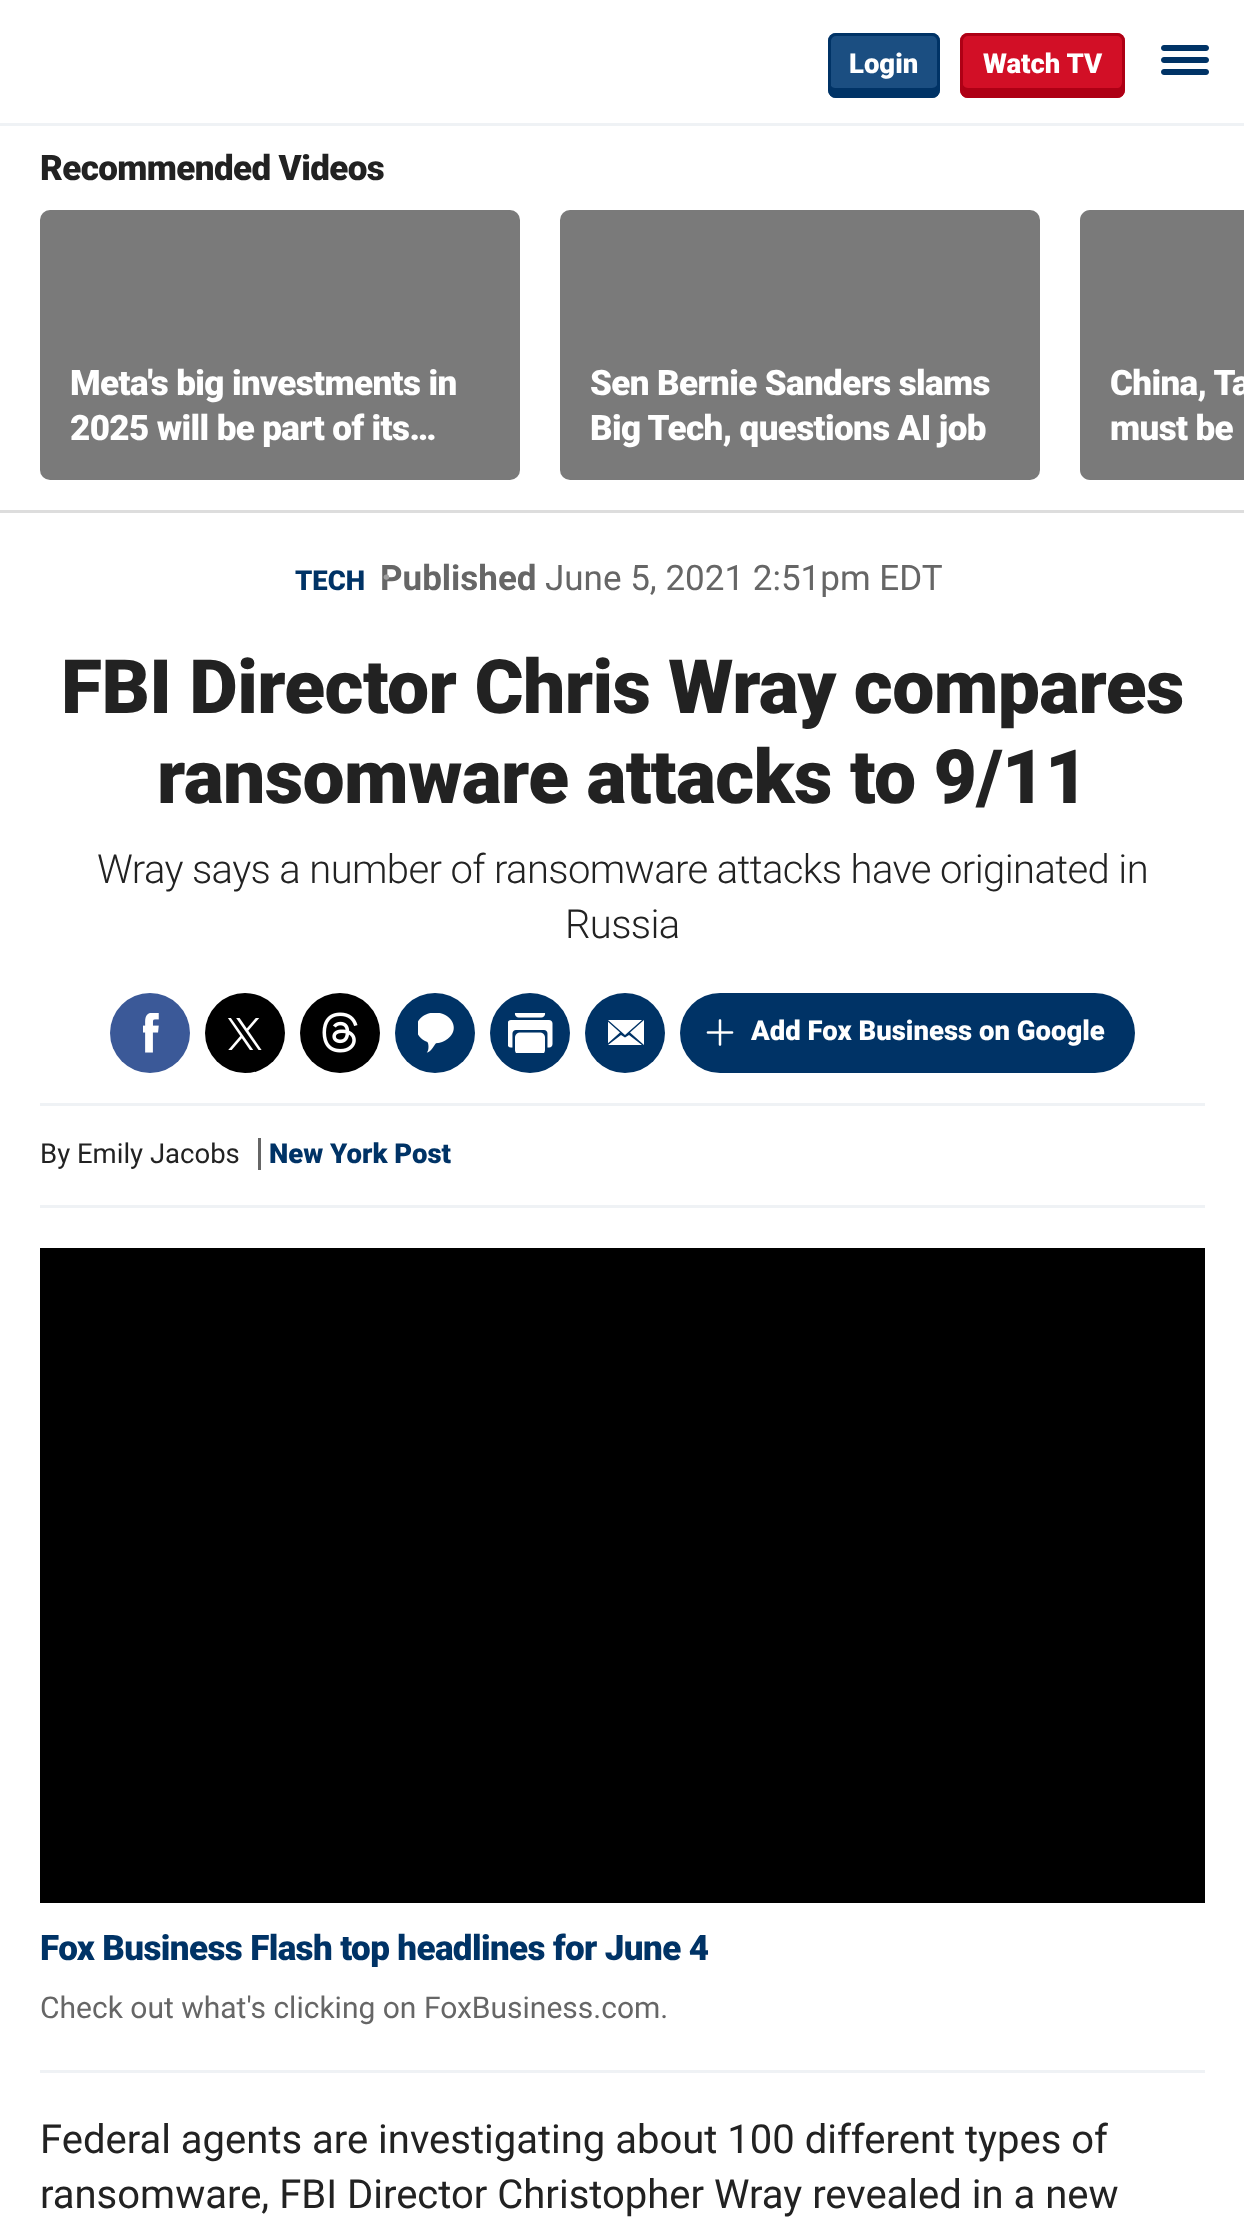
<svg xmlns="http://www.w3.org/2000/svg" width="1244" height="2239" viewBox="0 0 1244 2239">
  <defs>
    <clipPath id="clip1"><path d="M608 1020h37v25H608z"/></clipPath>
  </defs>
  <rect width="100%" height="100%" fill="#fff"/>
  <path d="M0 123h1244v3H0z" fill="#eff2f5"/>
  <rect x="828" y="33" width="112" height="65" rx="8" fill="#1b4e81"/>
  <path d="M830 82V90C830 93 832 95 835 95H933C936 95 938 93 938 90V82C938 85 935 88 932 88H835C832 88 830 85 830 82Z" fill="#036"/>
  <rect x="829.5" y="34.5" width="109" height="62" rx="6.5" fill="none" stroke="#036" stroke-width="3"/>
  <rect x="960" y="33" width="165" height="65" rx="8" fill="#d20f26"/>
  <path d="M963 85V90C963 93 965 95 968 95H1118C1121 95 1123 93 1123 90V40C1123 39 1123 38 1122 37V82C1122 85 1120 88 1118 88H968C966 88 964 87 963 85Z" fill="#ae0015"/>
  <rect x="961.5" y="34.5" width="162" height="62" rx="6.5" fill="none" stroke="#ae0015" stroke-width="3"/>
  <image x="1161" y="45" width="48" height="30" href="img/1.png"/>
  <path d="M0 510h1244v3H0z" fill="#ddd"/>
  <rect x="40" y="210" width="480" height="270" rx="10" fill="#f4f4f4"/>
  <rect x="40" y="210" width="480" height="270" rx="10" fill="#00000080"/>
  <rect x="560" y="210" width="480" height="270" rx="10" fill="#f4f4f4"/>
  <rect x="560" y="210" width="480" height="270" rx="10" fill="#00000080"/>
  <path d="M1090 210H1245V480H1090C1084.5 480 1080 475.5 1080 470V220C1080 214.5 1084.5 210 1090 210Z" fill="#f4f4f4"/>
  <path d="M1090 210H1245V480H1090C1084.5 480 1080 475.5 1080 470V220C1080 214.5 1084.5 210 1090 210Z" fill="#00000080"/>
  <path d="M40 1205h1165v3H40z" fill="#eff2f5"/>
  <circle cx="150" cy="1033" r="40" fill="#3b5998"/>
  <image x="143" y="1013" width="16" height="40" href="img/2.png"/>
  <circle cx="245" cy="1033" r="40" fill="#000"/>
  <image x="228" y="1018" width="34" height="32" href="img/3.png"/>
  <circle cx="340" cy="1033" r="40" fill="#000"/>
  <image x="322" y="1012" width="36" height="41" href="img/4.png"/>
  <circle cx="435" cy="1033" r="40" fill="#036"/>
  <image x="418" y="1013" width="36" height="40" href="img/5.png"/>
  <circle cx="530" cy="1033" r="40" fill="#036"/>
  <image x="508" y="1013" width="45" height="40" href="img/6.png"/>
  <circle cx="625" cy="1033" r="40" fill="#036"/>
  <g clip-path="url(#clip1)">
    <path d="M630 1032.5L644 1020V1045ZM608 1020H642L625 1035ZM606 1045V1020L620 1032.5ZM625 1037.5L629 1035L642 1045H608L621 1035Z" fill="#fff"/>
  </g>
  <rect x="680" y="993" width="455" height="80" rx="40" fill="#036"/>
  <image x="706" y="1019" width="28" height="27" href="img/7.png"/>
  <path d="M40 1103h1165v3H40z" fill="#eff2f5"/>
  <path d="M258 1138h3v32H258z" fill="#666"/>
  <path d="M40 2070h1165v3H40z" fill="#eff2f5"/>
  <path d="M40 1248h1165v655H40z" fill="#000"/>
  <g font-family="Roboto" font-size="27.5" font-weight="900" fill="#fff">
    <text x="849" y="73">Login</text>
    <text x="983" y="73">Watch TV</text>
  </g>
  <text x="40" y="180" font-family="Roboto" font-size="35" font-weight="900" letter-spacing="-0.62" fill="#222">Recommended Videos</text>
  <g font-family="Roboto" font-size="35" font-weight="900" letter-spacing="-0.62" fill="#fff">
    <text x="70" y="395">Meta's big investments in</text>
    <text x="70" y="440">2025 will be part of its…</text>
    <text x="590" y="395">Sen Bernie Sanders slams</text>
    <text x="590" y="440">Big Tech, questions AI job</text>
    <text x="1110" y="395">China, Ta</text>
    <text x="1110" y="440">must be</text>
  </g>
  <text x="295" y="590" font-family="Roboto" font-size="27.5" font-weight="900" fill="#036">TECH</text>
  <text x="380" y="590" font-family="Roboto" font-size="35" font-weight="bold" fill="#666">Published</text>
  <text x="545" y="590" font-family="Roboto" font-size="35" fill="#666">June 5, 2021 2:51pm EDT</text>
  <text x="380" y="595" font-family="Roboto" font-size="50" fill="#a0a0a0">·</text>
  <g font-family="Roboto" font-size="75" font-weight="900" letter-spacing="-0.62" fill="#222">
    <text x="61" y="713">FBI Director Chris Wray compares</text>
    <text x="157" y="803">ransomware attacks to 9/11</text>
  </g>
  <g font-family="Roboto" font-size="40" font-weight="300" letter-spacing="-0.62" fill="#222">
    <text x="97" y="883">Wray says a number of ransomware attacks have originated in</text>
    <text x="565" y="938">Russia</text>
  </g>
  <text x="751" y="1040" font-family="Roboto" font-size="27.5" font-weight="900" fill="#fff">Add Fox Business on Google</text>
  <text x="40" y="1163" font-family="Roboto" font-size="27.5" fill="#222">By Emily Jacobs</text>
  <text x="269" y="1163" font-family="Roboto" font-size="27.5" font-weight="900" fill="#036">New York Post</text>
  <text x="40" y="1960" font-family="Roboto" font-size="35" font-weight="900" letter-spacing="-0.62" fill="#036">Fox Business Flash top headlines for June 4</text>
  <text x="40" y="2018" font-family="Roboto" font-size="30" fill="#666">Check out what's clicking on FoxBusiness.com.</text>
  <g font-family="Roboto" font-size="40" fill="#222">
    <text x="40" y="2153">Federal agents are investigating about 100 different types of</text>
    <text x="40" y="2208">ransomware, FBI Director Christopher Wray revealed in a new</text>
  </g>
</svg>
